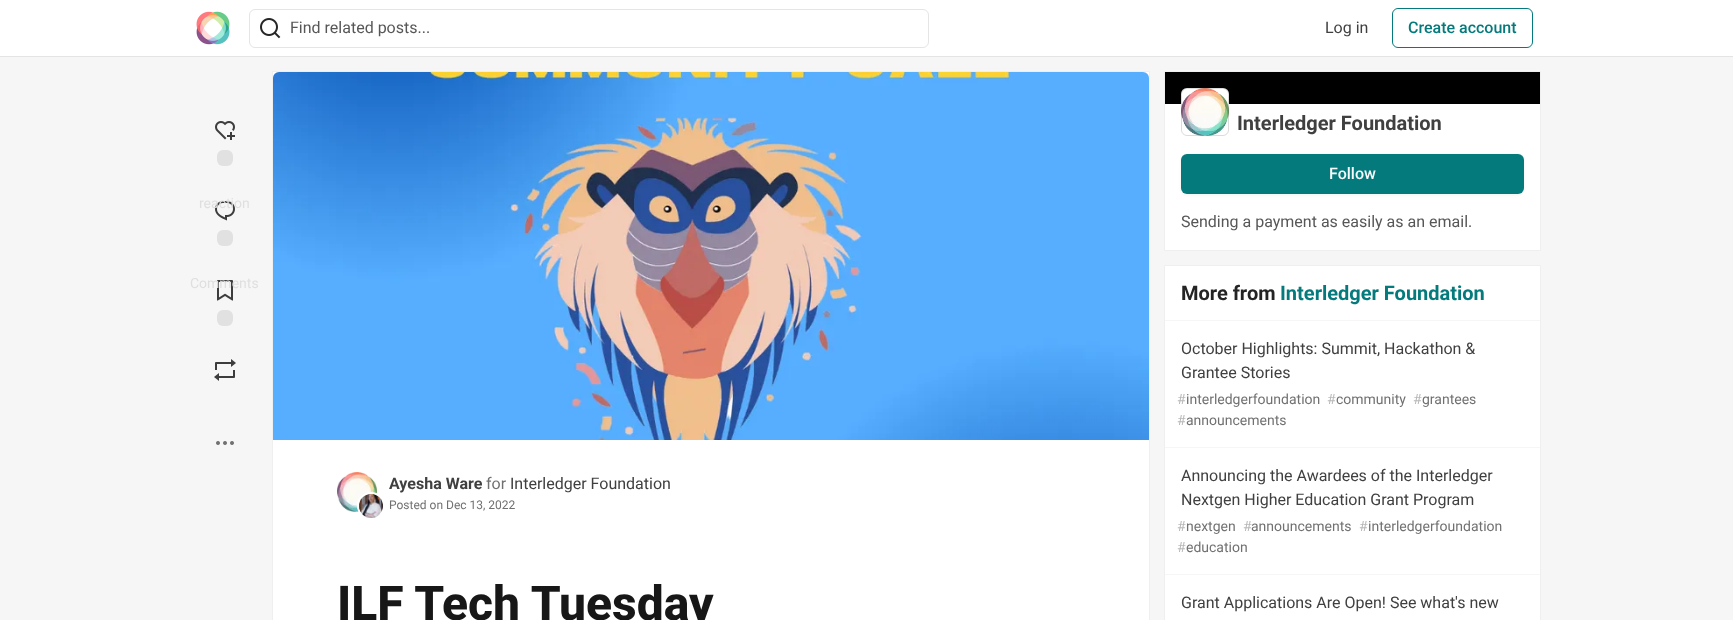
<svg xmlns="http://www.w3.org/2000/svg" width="1733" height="620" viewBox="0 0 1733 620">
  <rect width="100%" height="100%" fill="#f6f6f6"/>
  <path d="M0 1h1733v56H0z" fill="#00000012" filter="blur(0.5px)"/>
  <path d="M0 0h1733v56H0z" fill="#fff"/>
  <image x="196" y="11" width="34" height="34" href="img/1.png"/>
  <rect x="249.5" y="9.5" width="679" height="38" rx="5.5" fill="none" stroke="#e5e5e5"/>
  <image x="260" y="18" width="21" height="21" href="img/2.png"/>
  <rect x="1392.5" y="8.5" width="140" height="39" rx="5.5" fill="none" stroke="#047a7c"/>
  <image x="215" y="121" width="20" height="19" href="img/3.png"/>
  <rect x="217" y="150" width="16" height="16" rx="6" fill="#e1e1e1"/>
  <image x="215" y="201" width="20" height="20" href="img/4.png"/>
  <rect x="217" y="230" width="16" height="16" rx="6" fill="#e1e1e1"/>
  <image x="217" y="280" width="16" height="21" href="img/5.png"/>
  <rect x="217" y="310" width="16" height="16" rx="6" fill="#e1e1e1"/>
  <image x="214" y="359" width="22" height="22" href="img/6.png"/>
  <image x="216" y="441" width="18" height="4" href="img/7.png"/>
  <path d="M1164.5 71.5h376v179H1164.5z" fill="none" stroke="#efefef"/>
  <path d="M1165 104h375v146H1165z" fill="#fff"/>
  <path d="M1165 72h375v32H1165z" fill="#000"/>
  <rect x="1181" y="88" width="48" height="48" rx="6" fill="#fff"/>
  <image x="1181" y="88" width="48" height="48" href="img/8.png"/>
  <rect x="1181.5" y="88.5" width="47" height="47" rx="5.5" fill="none" stroke="#17171726"/>
  <rect x="1181" y="155" width="343" height="40" rx="6" fill="#0000000d" filter="blur(1.5px)"/>
  <rect x="1181" y="154" width="343" height="40" rx="6" fill="#047a7c"/>
  <path d="M1164.5 265.5h376v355H1164.5z" fill="none" stroke="#efefef"/>
  <path d="M1165 266h375v354H1165z" fill="#fff"/>
  <path d="M1165 320h375v1H1165z" fill="#f6f6f6"/>
  <path d="M1165 447h375v1H1165z" fill="#f6f6f6"/>
  <path d="M1165 574h375v1H1165z" fill="#f6f6f6"/>
  <path d="M272.5 71.5h877v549H272.5z" fill="none" stroke="#efefef"/>
  <path d="M273 72h876v548H273z" fill="#fff"/>
  <image x="273" y="72" width="876" height="368" href="img/9.png"/>
  <image x="337" y="472" width="40" height="40" href="img/10.png"/>
  <circle cx="371" cy="506" r="13" fill="none" stroke="#fff" stroke-width="2"/>
  <image x="359" y="494" width="24" height="24" href="img/11.png"/>
  <text x="290" y="33" font-family="Roboto" font-size="16" fill="#575757">Find related posts...</text>
  <text x="1325" y="33" font-family="Roboto" font-size="16" fill="#404040">Log in</text>
  <text x="1408" y="33" font-family="Roboto" font-size="16" font-weight="500" fill="#047a7c">Create account</text>
  <g font-family="Roboto" font-size="14" fill="#dfdfdf">
    <text x="199" y="208">reaction</text>
    <text x="190" y="288">Comments</text>
  </g>
  <text x="1237" y="130" font-family="Roboto" font-size="20" font-weight="bold" fill="#404040">Interledger Foundation</text>
  <text x="1329" y="179" font-family="Roboto" font-size="16" font-weight="500" fill="#f9f9f9">Follow</text>
  <text x="1181" y="227" font-family="Roboto" font-size="16" fill="#575757">Sending a payment as easily as an email.</text>
  <text x="1181" y="300" font-family="Roboto" font-size="20" font-weight="bold" fill="#242424">More from</text>
  <text x="1280" y="300" font-family="Roboto" font-size="20" font-weight="bold" fill="#047a7c">Interledger Foundation</text>
  <g font-family="Roboto" font-size="16" fill="#404040">
    <text x="1181" y="354">October Highlights: Summit, Hackathon &amp;</text>
    <text x="1181" y="378">Grantee Stories</text>
  </g>
  <text x="1177" y="404" font-family="Roboto" font-size="14" fill="#b8b8b8">#</text>
  <text x="1186" y="404" font-family="Roboto" font-size="14" fill="#717171">interledgerfoundation</text>
  <text x="1327" y="404" font-family="Roboto" font-size="14" fill="#b8b8b8">#</text>
  <text x="1336" y="404" font-family="Roboto" font-size="14" fill="#717171">community</text>
  <text x="1413" y="404" font-family="Roboto" font-size="14" fill="#b8b8b8">#</text>
  <text x="1422" y="404" font-family="Roboto" font-size="14" fill="#717171">grantees</text>
  <text x="1177" y="425" font-family="Roboto" font-size="14" fill="#b8b8b8">#</text>
  <text x="1186" y="425" font-family="Roboto" font-size="14" fill="#717171">announcements</text>
  <g font-family="Roboto" font-size="16" fill="#404040">
    <text x="1181" y="481">Announcing the Awardees of the Interledger</text>
    <text x="1181" y="505">Nextgen Higher Education Grant Program</text>
  </g>
  <text x="1177" y="531" font-family="Roboto" font-size="14" fill="#b8b8b8">#</text>
  <text x="1186" y="531" font-family="Roboto" font-size="14" fill="#717171">nextgen</text>
  <text x="1243" y="531" font-family="Roboto" font-size="14" fill="#b8b8b8">#</text>
  <text x="1251" y="531" font-family="Roboto" font-size="14" fill="#717171">announcements</text>
  <text x="1359" y="531" font-family="Roboto" font-size="14" fill="#b8b8b8">#</text>
  <text x="1368" y="531" font-family="Roboto" font-size="14" fill="#717171">interledgerfoundation</text>
  <text x="1177" y="552" font-family="Roboto" font-size="14" fill="#b8b8b8">#</text>
  <text x="1186" y="552" font-family="Roboto" font-size="14" fill="#717171">education</text>
  <text x="1181" y="608" font-family="Roboto" font-size="16" fill="#404040">Grant Applications Are Open! See what's new</text>
  <text x="389" y="489" font-family="Roboto" font-size="16" font-weight="bold" fill="#404040">Ayesha Ware</text>
  <text x="486" y="489" font-family="Roboto" font-size="16" fill="#717171">for</text>
  <text x="510" y="489" font-family="Roboto" font-size="16" fill="#404040">Interledger Foundation</text>
  <text x="389" y="509" font-family="Roboto" font-size="12" fill="#717171">Posted on Dec 13, 2022</text>
  <text x="337" y="620" font-family="Roboto" font-size="48" font-weight="800" fill="#171717">ILF Tech Tuesday</text>
</svg>
